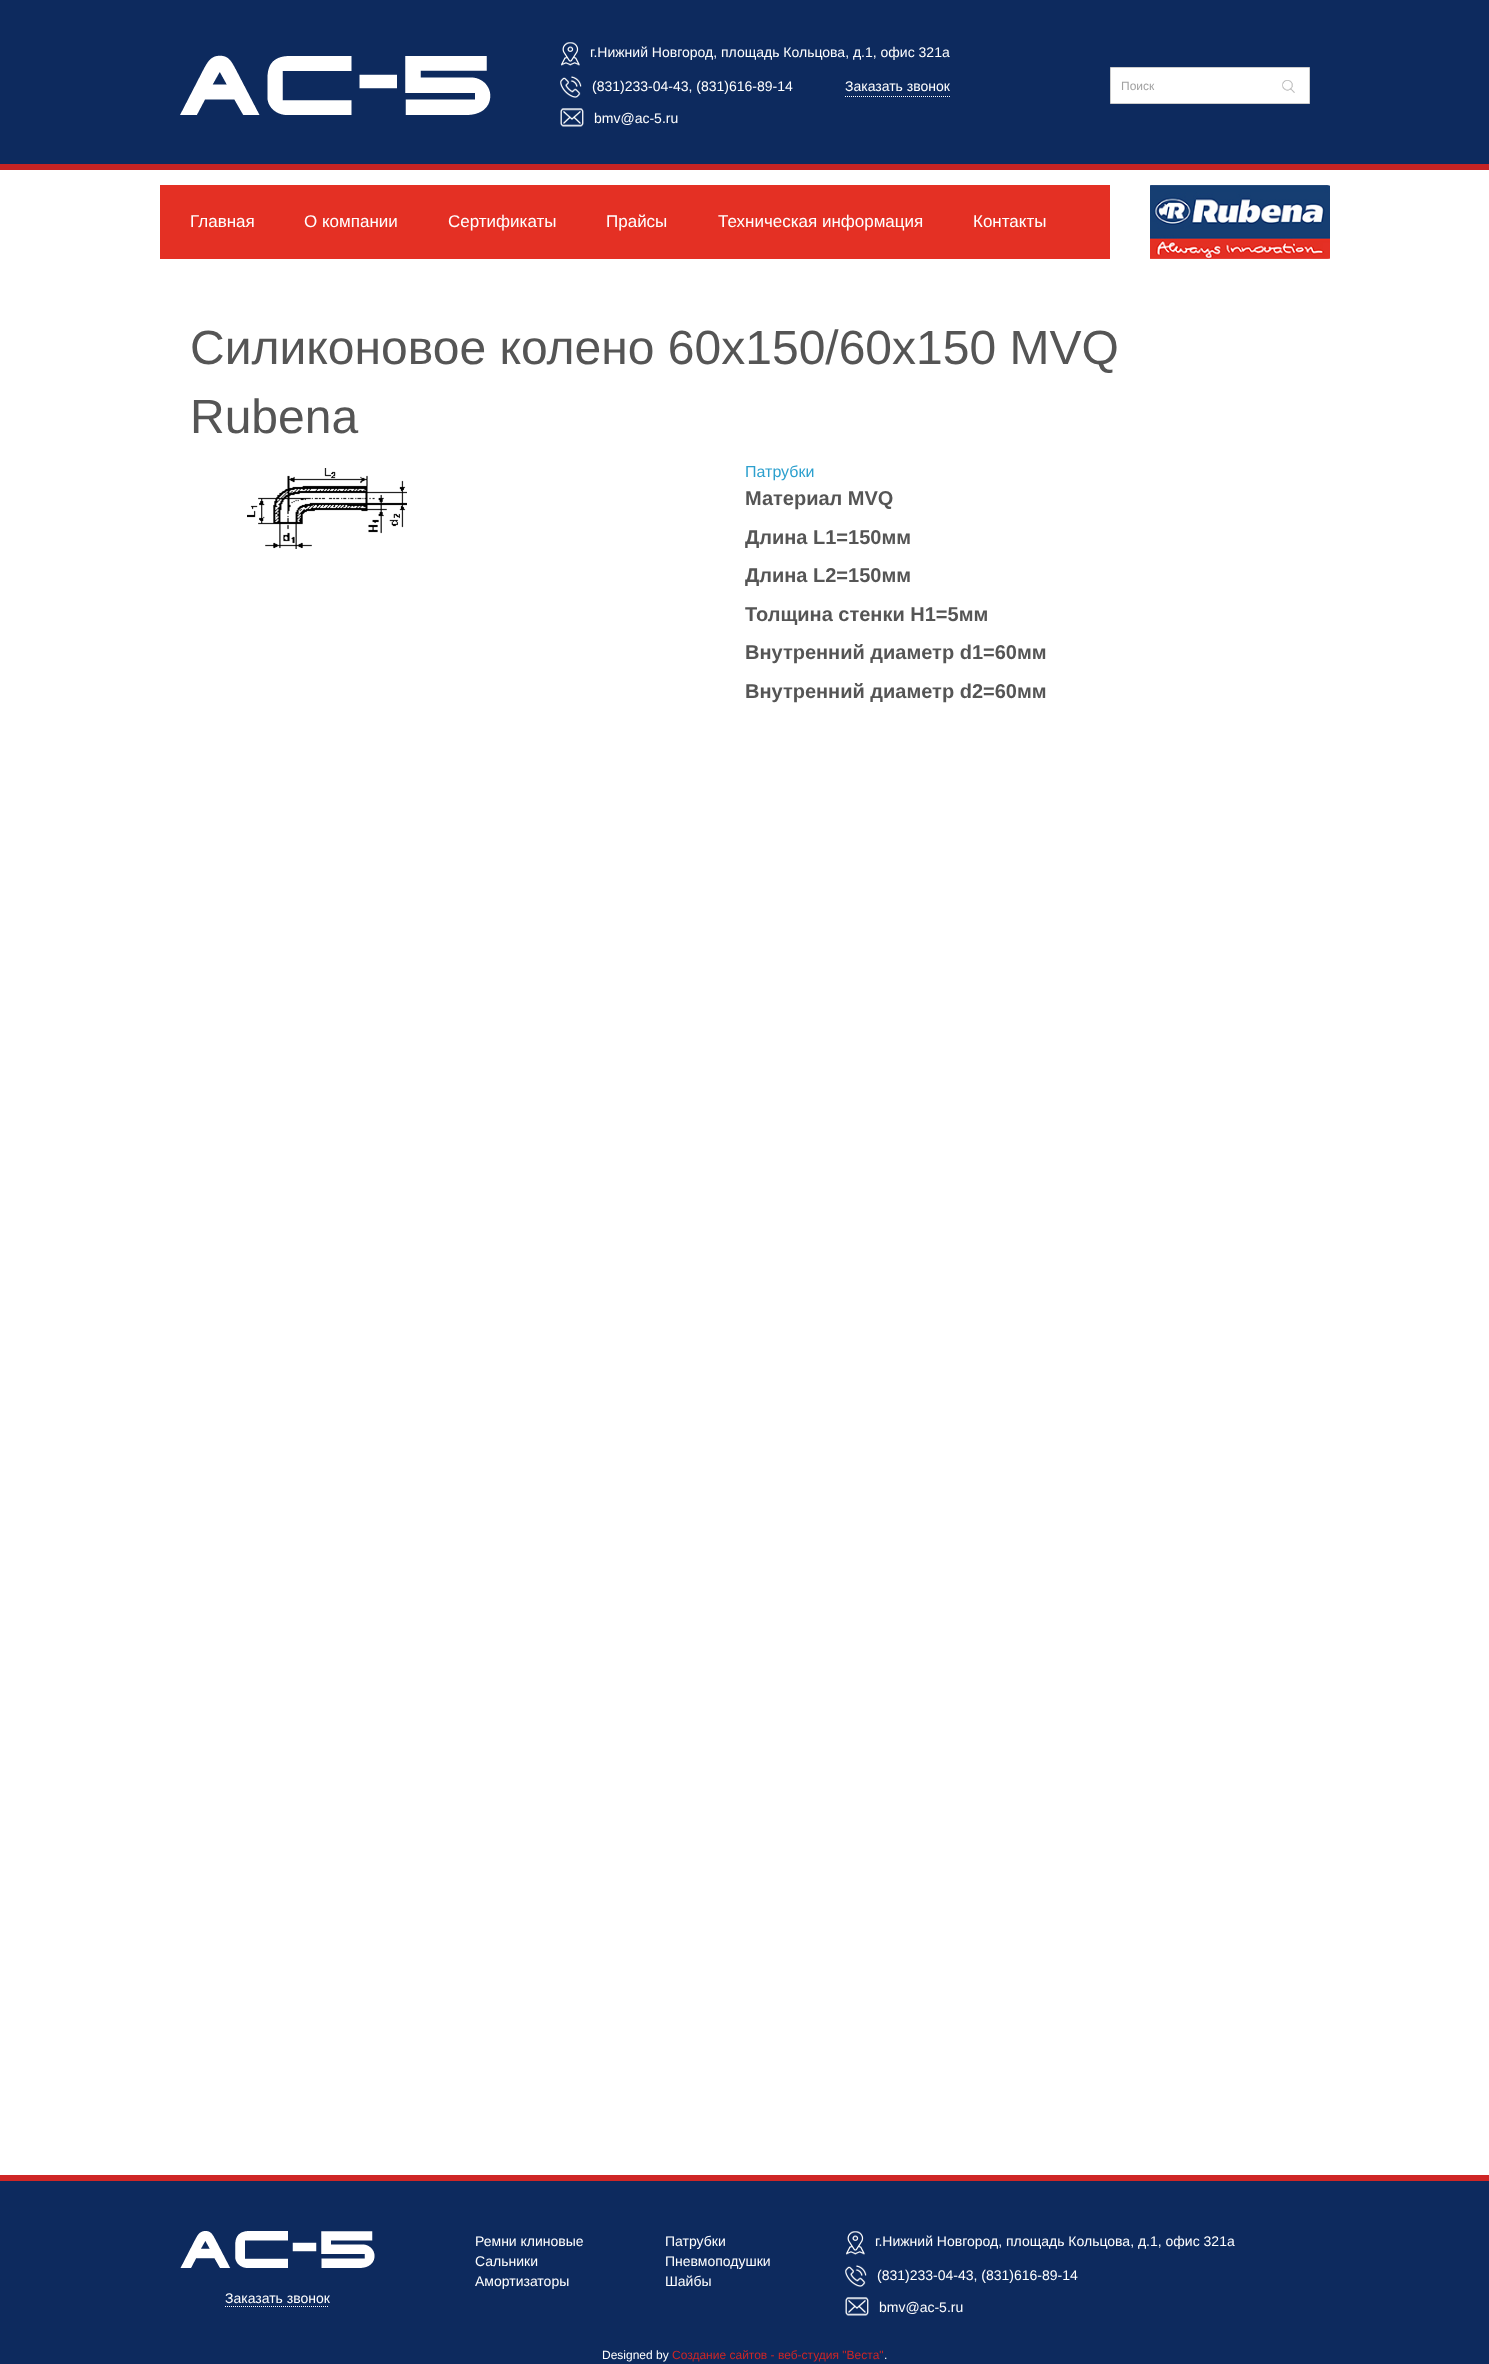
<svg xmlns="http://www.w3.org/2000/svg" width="1489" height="2364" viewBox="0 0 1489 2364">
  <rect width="100%" height="100%" fill="#fff"/>
  <path d="M0 0h1489v164H0z" fill="#0d2a5e"/>
  <path d="M0 164h1489v6H0z" fill="#c62424"/>
  <image x="180" y="55" width="311" height="60" href="img/1.png"/>
  <image x="561" y="42" width="19" height="24" href="img/2.png"/>
  <image x="560" y="76" width="22" height="22" href="img/3.png"/>
  <path d="M845 96.5H950" fill="none" stroke="#fff" stroke-dasharray="1 1"/>
  <image x="560" y="108" width="24" height="19" href="img/4.png"/>
  <path d="M1110.5 67.5h199v36H1110.5z" fill="#fff" stroke="#ccc"/>
  <image x="1282" y="80" width="13" height="13" href="img/5.png"/>
  <path d="M160 185h950v74H160z" fill="#e43024"/>
  <image x="1150" y="185" width="180" height="74" href="img/6.png"/>
  <image x="247" y="468" width="160" height="81" href="img/7.png"/>
  <path d="M0 2181h1489v183H0z" fill="#0d2a5e"/>
  <path d="M0 2175h1489v6H0z" fill="#cf2626"/>
  <image x="846" y="2231" width="19" height="24" href="img/2.png"/>
  <image x="845" y="2265" width="22" height="22" href="img/3.png"/>
  <image x="845" y="2297" width="24" height="19" href="img/4.png"/>
  <image x="180" y="2231" width="195" height="37" href="img/8.png"/>
  <path d="M225 2306.5H329" fill="none" stroke="#fff" stroke-dasharray="1 1"/>
  <g font-family="Liberation Sans" font-size="14" fill="#fff">
    <text x="590" y="57">г.Нижний Новгород, площадь Кольцова, д.1, офис 321а</text>
    <text x="592" y="91">(831)233-04-43, (831)616-89-14</text>
    <text x="845" y="91">Заказать звонок</text>
    <text x="594" y="123">bmv@ac-5.ru</text>
  </g>
  <text x="1121" y="90" font-family="Liberation Sans" font-size="12" fill="#a1a1a1">Поиск</text>
  <g font-family="Liberation Sans" font-size="17" fill="#fff">
    <text x="190" y="227">Главная</text>
    <text x="304" y="227">О компании</text>
    <text x="448" y="227">Сертификаты</text>
    <text x="606" y="227">Прайсы</text>
    <text x="718" y="227">Техническая информация</text>
    <text x="973" y="227">Контакты</text>
  </g>
  <g font-family="Liberation Sans" font-size="48" fill="#555">
    <text x="190" y="364">Силиконовое колено 60x150/60x150 MVQ</text>
    <text x="190" y="433">Rubena</text>
  </g>
  <text x="745" y="477" font-family="Liberation Sans" font-size="16" fill="#2da0ce">Патрубки</text>
  <g font-family="Liberation Sans" font-size="20" font-weight="bold" fill="#555">
    <text x="745" y="505">Материал MVQ</text>
    <text x="745" y="544">Длина L1=150мм</text>
    <text x="745" y="582">Длина L2=150мм</text>
    <text x="745" y="621">Толщина стенки H1=5мм</text>
    <text x="745" y="659">Внутренний диаметр d1=60мм</text>
    <text x="745" y="698">Внутренний диаметр d2=60мм</text>
  </g>
  <g font-family="Liberation Sans" font-size="14" fill="#fff">
    <text x="475" y="2246">Ремни клиновые</text>
    <text x="475" y="2266">Сальники</text>
    <text x="475" y="2286">Амортизаторы</text>
    <text x="665" y="2246">Патрубки</text>
    <text x="665" y="2266">Пневмоподушки</text>
    <text x="665" y="2286">Шайбы</text>
    <text x="875" y="2246">г.Нижний Новгород, площадь Кольцова, д.1, офис 321а</text>
    <text x="877" y="2280">(831)233-04-43, (831)616-89-14</text>
    <text x="879" y="2312">bmv@ac-5.ru</text>
    <text x="225" y="2303">Заказать звонок</text>
  </g>
  <text x="602" y="2359" font-family="Liberation Sans" font-size="12" fill="#fff">Designed by</text>
  <text x="672" y="2359" font-family="Liberation Sans" font-size="12" fill="#cf2626">Создание сайтов - веб-студия "Веста"</text>
  <text x="884" y="2359" font-family="Liberation Sans" font-size="12" fill="#fff">.</text>
</svg>
